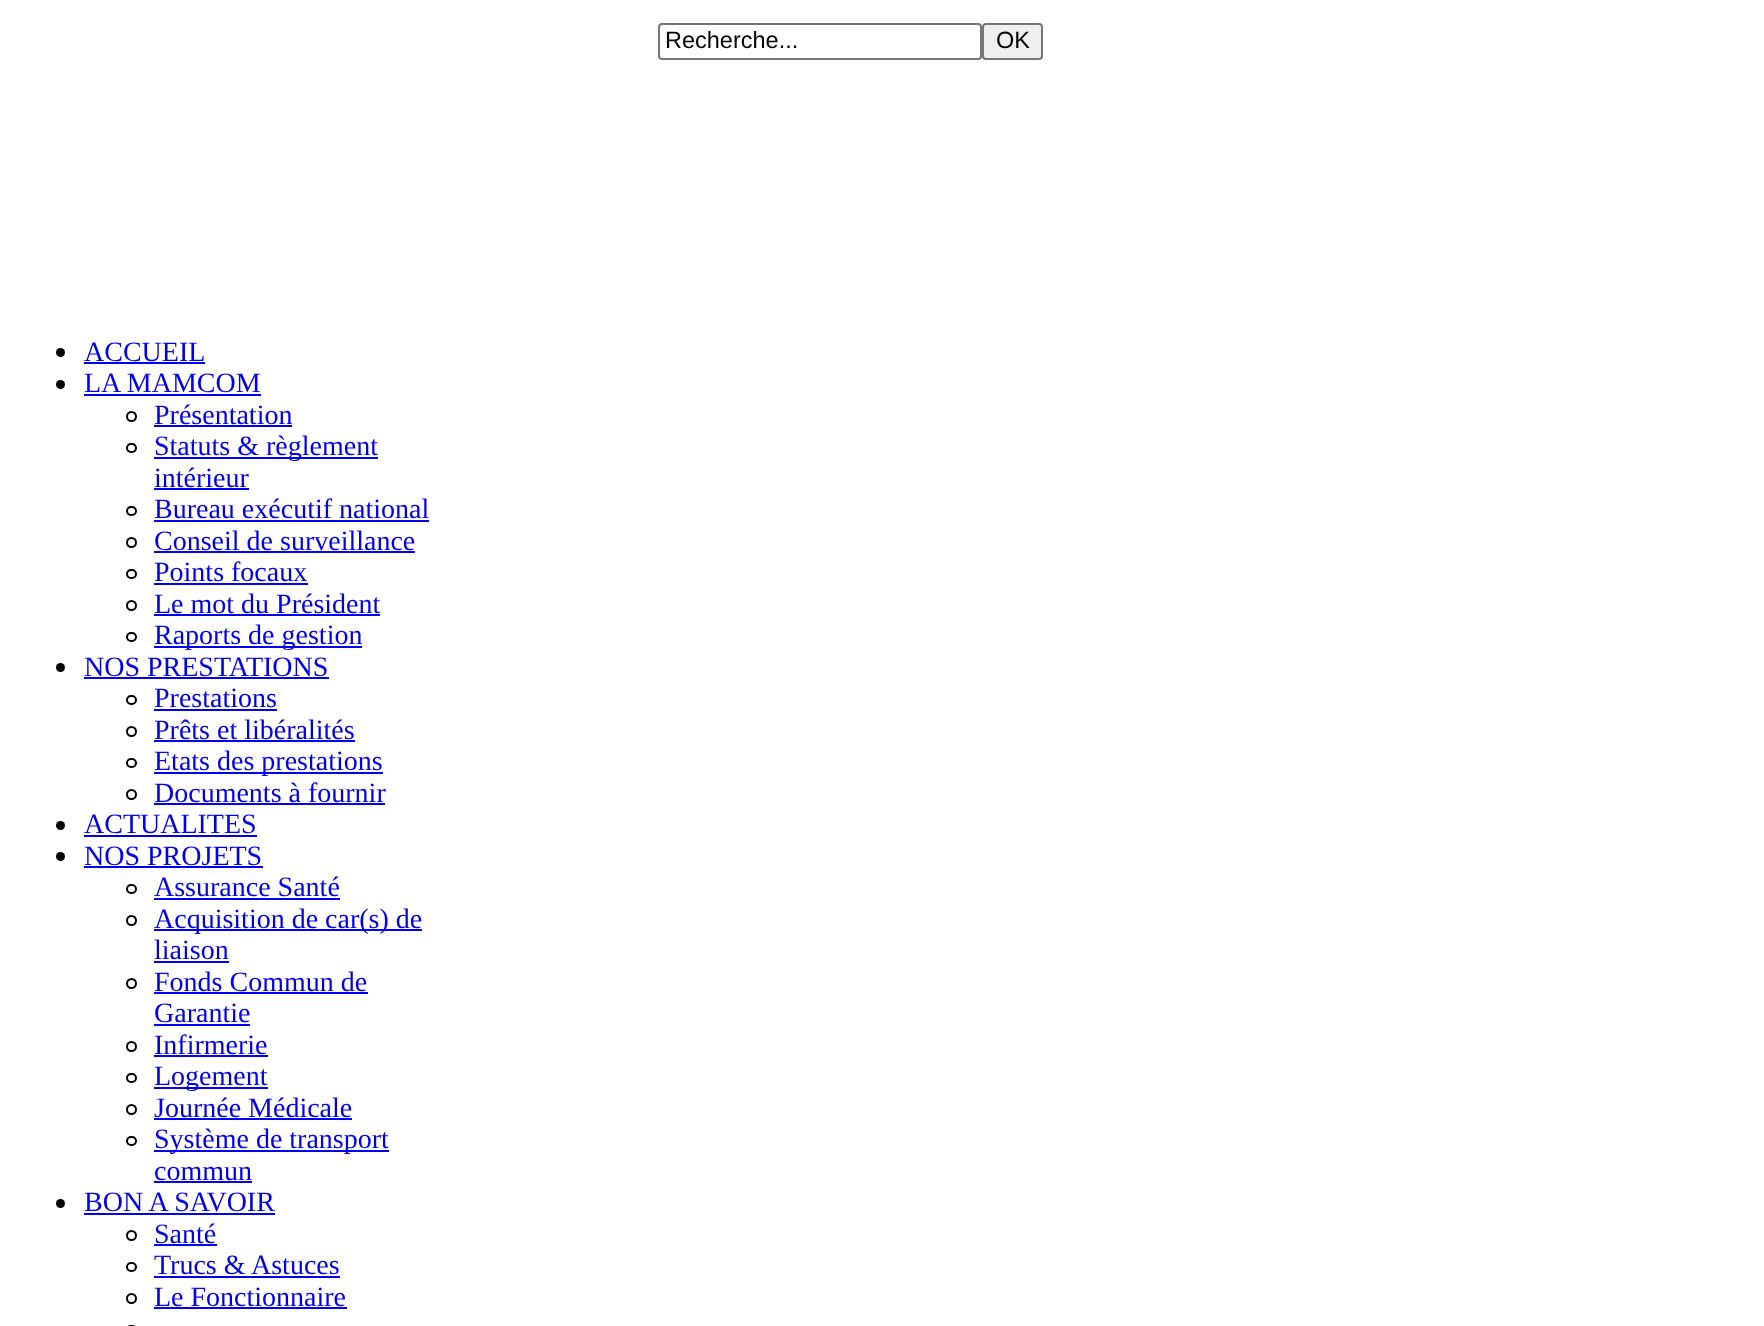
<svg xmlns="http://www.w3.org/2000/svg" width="1764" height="1326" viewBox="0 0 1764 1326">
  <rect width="100%" height="100%" fill="#fff"/>
  <rect x="659" y="24" width="322" height="35" rx="3" fill="none" stroke="#767676" stroke-width="2"/>
  <rect x="983" y="24" width="59" height="35" rx="3" fill="#efefef" stroke="#767676" stroke-width="2"/>
  <circle cx="60.5" cy="352.5" r="4.5" fill="#000"/>
  <path d="M84 362h121v2H84z" fill="#00e"/>
  <circle cx="60.5" cy="384.5" r="4.5" fill="#000"/>
  <path d="M84 394h177v2H84z" fill="#00e"/>
  <circle cx="131.5" cy="416.5" r="4.5" fill="none" stroke="#000" stroke-width="2"/>
  <path d="M154 425h138v2H154z" fill="#00e"/>
  <rect x="127" y="444" width="9" height="8" rx="4" fill="none" stroke="#000" stroke-width="2"/>
  <path d="M154 457h224v2H154z" fill="#00e"/>
  <path d="M154 488h95v2H154z" fill="#00e"/>
  <rect x="127" y="507" width="9" height="8" rx="4" fill="none" stroke="#000" stroke-width="2"/>
  <path d="M154 520h275v2H154z" fill="#00e"/>
  <circle cx="131.5" cy="542.5" r="4.5" fill="none" stroke="#000" stroke-width="2"/>
  <path d="M154 551h261v2H154z" fill="#00e"/>
  <rect x="127" y="570" width="9" height="8" rx="4" fill="none" stroke="#000" stroke-width="2"/>
  <path d="M154 583h154v2H154z" fill="#00e"/>
  <circle cx="131.5" cy="605.5" r="4.5" fill="none" stroke="#000" stroke-width="2"/>
  <path d="M154 614h226v2H154z" fill="#00e"/>
  <rect x="127" y="633" width="9" height="8" rx="4" fill="none" stroke="#000" stroke-width="2"/>
  <path d="M154 646h208v2H154z" fill="#00e"/>
  <circle cx="60.5" cy="667.5" r="4.5" fill="#000"/>
  <path d="M84 677h245v2H84z" fill="#00e"/>
  <rect x="127" y="696" width="9" height="8" rx="4" fill="none" stroke="#000" stroke-width="2"/>
  <path d="M154 709h123v2H154z" fill="#00e"/>
  <circle cx="131.5" cy="731.5" r="4.5" fill="none" stroke="#000" stroke-width="2"/>
  <path d="M154 740h201v2H154z" fill="#00e"/>
  <rect x="127" y="759" width="9" height="8" rx="4" fill="none" stroke="#000" stroke-width="2"/>
  <path d="M154 772h229v2H154z" fill="#00e"/>
  <circle cx="131.5" cy="794.5" r="4.5" fill="none" stroke="#000" stroke-width="2"/>
  <path d="M154 803h231v2H154z" fill="#00e"/>
  <circle cx="60.5" cy="825.5" r="4.5" fill="#000"/>
  <path d="M84 835h173v2H84z" fill="#00e"/>
  <circle cx="60.5" cy="856.5" r="4.5" fill="#000"/>
  <path d="M84 866h179v2H84z" fill="#00e"/>
  <rect x="127" y="885" width="9" height="8" rx="4" fill="none" stroke="#000" stroke-width="2"/>
  <path d="M154 898h186v2H154z" fill="#00e"/>
  <circle cx="131.5" cy="920.5" r="4.5" fill="none" stroke="#000" stroke-width="2"/>
  <path d="M154 929h268v2H154z" fill="#00e"/>
  <path d="M154 961h75v2H154z" fill="#00e"/>
  <circle cx="131.5" cy="983.5" r="4.5" fill="none" stroke="#000" stroke-width="2"/>
  <path d="M154 992h214v2H154z" fill="#00e"/>
  <path d="M154 1024h96v2H154z" fill="#00e"/>
  <circle cx="131.5" cy="1046.5" r="4.5" fill="none" stroke="#000" stroke-width="2"/>
  <path d="M154 1055h114v2H154z" fill="#00e"/>
  <rect x="127" y="1074" width="9" height="8" rx="4" fill="none" stroke="#000" stroke-width="2"/>
  <path d="M154 1087h114v2H154z" fill="#00e"/>
  <circle cx="131.5" cy="1109.5" r="4.5" fill="none" stroke="#000" stroke-width="2"/>
  <path d="M154 1118h198v2H154z" fill="#00e"/>
  <rect x="127" y="1137" width="9" height="8" rx="4" fill="none" stroke="#000" stroke-width="2"/>
  <path d="M154 1150h235v2H154z" fill="#00e"/>
  <path d="M154 1181h98v2H154z" fill="#00e"/>
  <circle cx="60.5" cy="1203.5" r="4.5" fill="#000"/>
  <path d="M84 1213h191v2H84z" fill="#00e"/>
  <circle cx="131.5" cy="1235.5" r="4.5" fill="none" stroke="#000" stroke-width="2"/>
  <path d="M154 1244h63v2H154z" fill="#00e"/>
  <rect x="127" y="1263" width="9" height="8" rx="4" fill="none" stroke="#000" stroke-width="2"/>
  <path d="M154 1276h186v2H154z" fill="#00e"/>
  <circle cx="131.5" cy="1298.5" r="4.5" fill="none" stroke="#000" stroke-width="2"/>
  <path d="M154 1307h193v2H154z" fill="#00e"/>
  <rect x="127" y="1326" width="9" height="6" rx="4" fill="none" stroke="#000" stroke-width="2"/>
  <g font-family="Liberation Sans" font-size="23.5" fill="#000">
    <text x="665" y="48">Recherche...</text>
    <text x="996" y="48">OK</text>
  </g>
  <g font-family="Liberation Serif" font-size="28" fill="#00e">
    <text x="84" y="361">ACCUEIL</text>
    <text x="84" y="392">LA MAMCOM</text>
    <text x="154" y="424">Présentation</text>
    <text x="154" y="455">Statuts &amp; règlement</text>
    <text x="154" y="487">intérieur</text>
    <text x="154" y="518">Bureau exécutif national</text>
    <text x="154" y="550">Conseil de surveillance</text>
    <text x="154" y="581">Points focaux</text>
    <text x="154" y="613">Le mot du Président</text>
    <text x="154" y="644">Raports de gestion</text>
    <text x="84" y="676">NOS PRESTATIONS</text>
    <text x="154" y="707">Prestations</text>
    <text x="154" y="739">Prêts et libéralités</text>
    <text x="154" y="770">Etats des prestations</text>
    <text x="154" y="802">Documents à fournir</text>
    <text x="84" y="833">ACTUALITES</text>
    <text x="84" y="865">NOS PROJETS</text>
    <text x="154" y="896">Assurance Santé</text>
    <text x="154" y="928">Acquisition de car(s) de</text>
    <text x="154" y="959">liaison</text>
    <text x="154" y="991">Fonds Commun de</text>
    <text x="154" y="1022">Garantie</text>
    <text x="154" y="1054">Infirmerie</text>
    <text x="154" y="1085">Logement</text>
    <text x="154" y="1117">Journée Médicale</text>
    <text x="154" y="1148">Système de transport</text>
    <text x="154" y="1180">commun</text>
    <text x="84" y="1211">BON A SAVOIR</text>
    <text x="154" y="1243">Santé</text>
    <text x="154" y="1274">Trucs &amp; Astuces</text>
    <text x="154" y="1306">Le Fonctionnaire</text>
  </g>
</svg>
